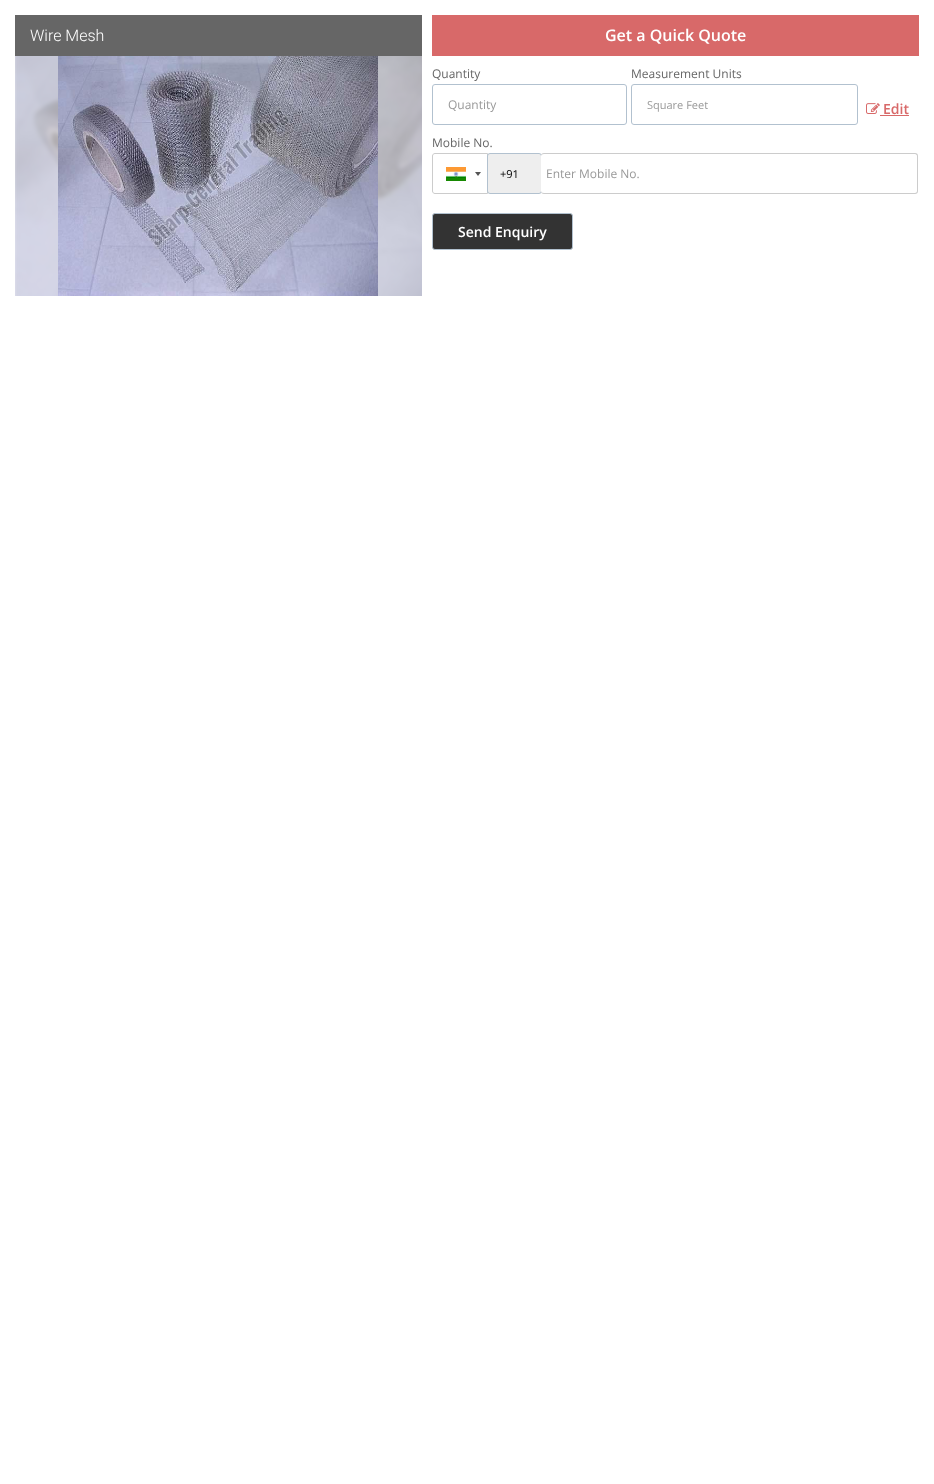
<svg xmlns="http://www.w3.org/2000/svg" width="934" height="1484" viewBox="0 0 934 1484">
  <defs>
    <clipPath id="clip1"><path d="M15 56h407v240H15z"/></clipPath>
  </defs>
  <rect width="100%" height="100%" fill="#fff"/>
  <path d="M15 56h5v240H15z" fill="#f7f7f7"/>
  <path d="M15 15h407v41H15z" fill="#666"/>
  <image x="15" y="56" width="407" height="240" href="img/1.png"/>
  <path d="M432 15h487v41H432z" fill="#d86969"/>
  <rect x="432.5" y="84.5" width="194" height="40" rx="2.5" fill="none" stroke="#b2c1cf"/>
  <rect x="432.5" y="213.5" width="140" height="36" rx="2.5" fill="#333" stroke="#b2c1cf"/>
  <g clip-path="url(#clip1)">
    <path d="M15 46h417v260H15z" fill="#f7f7f780" filter="blur(2px)"/>
  </g>
  <image x="58" y="56" width="320" height="240" href="img/2.png"/>
  <rect x="631.5" y="84.5" width="226" height="40" rx="2.5" fill="none" stroke="#b2c1cf"/>
  <image x="866" y="103" width="14" height="11" href="img/3.png"/>
  <path d="M880 115h29v1H880z" fill="#d86969"/>
  <path d="M435 153.5H487.5V193.5H435C433.5 193.5 432.5 192.5 432.5 191V156C432.5 154.5 433.5 153.5 435 153.5Z" fill="none" stroke="#ccc"/>
  <path d="M446 167h20v14H446z" fill="#888" filter="blur(0.5px)"/>
  <image x="446" y="167" width="20" height="14" href="img/4.png"/>
  <path d="M475 172H481L478 176Z" fill="#555"/>
  <rect x="487.5" y="153.5" width="54" height="40" rx="2.5" fill="#eee" stroke="#b2c1cf"/>
  <path d="M544 154H915C916 154 917 155 917 156V191C917 192 916 193 915 193H544C542 193 541 192 541 191V156C541 155 542 154 544 154Z" fill="#fff"/>
  <path d="M544 153H915C917 153 918 154 918 156V191C918 193 917 194 915 194H544C542 194 541 193 541 191V156C541 154 542 153 544 153ZM544 154H915C916 154 917 155 917 156V191C917 192 916 193 915 193H544C542 193 541 192 541 191V156C541 155 542 154 544 154Z" fill="#ccc" fill-rule="evenodd"/>
  <text x="30" y="41" font-family="Roboto" font-size="16" font-weight="300" fill="#fff">Wire Mesh</text>
  <text x="605" y="41" font-family="Open Sans" font-size="16" font-weight="600" fill="#fff">Get a Quick Quote</text>
  <text x="432" y="78" font-family="Open Sans" font-size="12" fill="#666">Quantity</text>
  <text x="448" y="109" font-family="Open Sans" font-size="12" fill="#999">Quantity</text>
  <text x="631" y="78" font-family="Open Sans" font-size="12" fill="#666">Measurement Units</text>
  <text x="647" y="109" font-family="Open Sans" font-size="11" fill="#999">Square Feet</text>
  <text x="883" y="114" font-family="Open Sans" font-size="14" font-weight="600" fill="#d86969">Edit</text>
  <text x="432" y="147" font-family="Open Sans" font-size="12" fill="#666">Mobile No.</text>
  <text x="500" y="178" font-family="Open Sans" font-size="11" fill="#000">+91</text>
  <text x="546" y="178" font-family="Open Sans" font-size="12" fill="#999">Enter Mobile No.</text>
  <text x="458" y="237" font-family="Open Sans" font-size="14" font-weight="600" fill="#fff">Send Enquiry</text>
</svg>
